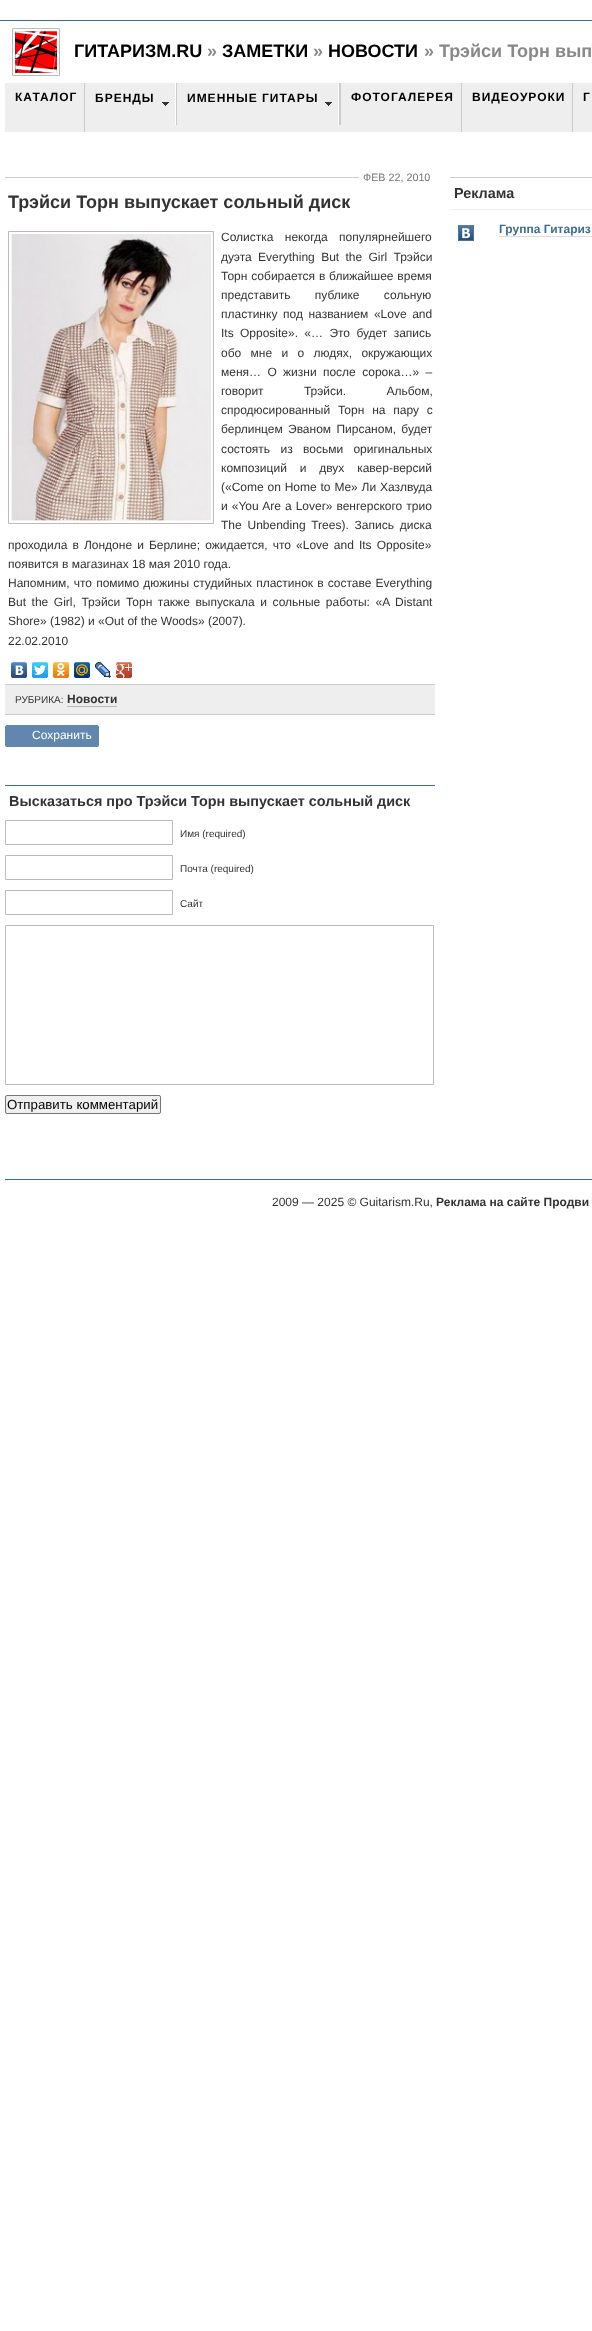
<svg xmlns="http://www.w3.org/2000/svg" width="592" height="2331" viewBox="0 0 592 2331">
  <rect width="100%" height="100%" fill="#fff"/>
  <path d="M0 20h592v1H0z" fill="#3c6c92"/>
  <path d="M12.5 28.5h47v47H12.5z" fill="none" stroke="#bbb"/>
  <image x="15" y="31" width="42" height="42" href="img/1.png"/>
  <path d="M5 83h587v49H5z" fill="#eee"/>
  <path d="M84 83h1v49H84z" fill="#ccc"/>
  <path d="M339 83h2v42H339z" fill="#ccc"/>
  <path d="M176 83h1v42H176z" fill="#ccc"/>
  <image x="162" y="102" width="7" height="4" href="img/2.png"/>
  <path d="M175 83h1v42H175z" fill="#fff"/>
  <image x="325" y="102" width="7" height="4" href="img/2.png"/>
  <path d="M338 83h1v42H338z" fill="#fff"/>
  <path d="M461 83h1v49H461z" fill="#ccc"/>
  <path d="M572 83h1v49H572z" fill="#ccc"/>
  <path d="M5 177h354v1H5z" fill="#ccc"/>
  <path d="M8.5 231.5h205v292H8.5z" fill="none" stroke="#bbb"/>
  <image x="11" y="234" width="200" height="287" href="img/3.png"/>
  <image x="11" y="662" width="16" height="16" href="img/4.png"/>
  <image x="32" y="662" width="16" height="16" href="img/5.png"/>
  <image x="53" y="662" width="16" height="16" href="img/6.png"/>
  <image x="74" y="662" width="16" height="16" href="img/7.png"/>
  <image x="95" y="662" width="16" height="16" href="img/8.png"/>
  <image x="116" y="662" width="16" height="16" href="img/9.png"/>
  <path d="M5 685h430v29H5z" fill="#eee"/>
  <path d="M5 684h430v1H5z" fill="#ccc"/>
  <path d="M5 714h430v1H5z" fill="#ccc"/>
  <path d="M67 706h50v1H67z" fill="#bbb"/>
  <path d="M7 725H32V747H7C6 747 5 746 5 745V727C5 726 6 725 7 725Z" fill="#6287ae"/>
  <path d="M32 725H97C98 725 99 726 99 727V745C99 746 98 747 97 747H32Z" fill="#6287ae"/>
  <path d="M5 785h430v1H5z" fill="#3c6c92"/>
  <path d="M5.5 820.5h167v24H5.5z" fill="none" stroke="#bbb"/>
  <path d="M5.5 855.5h167v24H5.5z" fill="none" stroke="#bbb"/>
  <path d="M5.5 890.5h167v24H5.5z" fill="none" stroke="#bbb"/>
  <path d="M5.5 925.5h428v159H5.5z" fill="none" stroke="#bbb"/>
  <rect x="5.5" y="1095.5" width="155" height="18" rx="1.5" fill="#efefef" stroke="#767676"/>
  <path d="M450 177h142v1H450z" fill="#ccc"/>
  <path d="M450 209h142v1H450z" fill="#eee"/>
  <image x="458" y="225" width="16" height="16" href="img/10.png"/>
  <path d="M499 236h93v1H499z" fill="#ddd"/>
  <path d="M5 1179h587v1H5z" fill="#3c6c92"/>
  <text x="74" y="57" font-family="Liberation Sans" font-size="18" font-weight="bold" fill="#000">ГИТАРИЗМ.RU</text>
  <text x="207" y="57" font-family="Liberation Sans" font-size="18" font-weight="bold" fill="#898989">»</text>
  <text x="222" y="57" font-family="Liberation Sans" font-size="18" font-weight="bold" fill="#000">ЗАМЕТКИ</text>
  <text x="313" y="57" font-family="Liberation Sans" font-size="18" font-weight="bold" fill="#898989">»</text>
  <text x="328" y="57" font-family="Liberation Sans" font-size="18" font-weight="bold" fill="#000">НОВОСТИ</text>
  <text x="424" y="57" font-family="Liberation Sans" font-size="18" font-weight="bold" fill="#898989">» Трэйси Торн вып</text>
  <g font-family="Liberation Sans" font-size="12" font-weight="bold" letter-spacing="1" fill="#000">
    <text x="15" y="101">КАТАЛОГ</text>
    <text x="95" y="102">БРЕНДЫ</text>
    <text x="187" y="102">ИМЕННЫЕ ГИТАРЫ</text>
    <text x="351" y="101">ФОТОГАЛЕРЕЯ</text>
    <text x="472" y="101">ВИДЕОУРОКИ</text>
    <text x="583" y="101">Г</text>
  </g>
  <text x="363" y="181" font-family="Liberation Sans" font-size="10.75" fill="#777">ФЕВ 22, 2010</text>
  <text x="8" y="208" font-family="Liberation Sans" font-size="18" font-weight="bold" fill="#333">Трэйси Торн выпускает сольный диск</text>
  <g font-family="Liberation Sans" font-size="12" fill="#333">
    <text x="221" y="241" word-spacing="8">Солистка некогда популярнейшего</text>
    <text x="221" y="261" word-spacing="3">дуэта Everything But the Girl Трэйси</text>
    <text x="221" y="280" word-spacing="0.5">Торн собирается в ближайшее время</text>
    <text x="221" y="299" word-spacing="21">представить публике сольную</text>
    <text x="221" y="318" word-spacing="2.25">пластинку под названием «Love and</text>
    <text x="221" y="337" word-spacing="3">Its Opposite». «… Это будет запись</text>
    <text x="221" y="357" word-spacing="6">обо мне и о людях, окружающих</text>
    <text x="221" y="376" word-spacing="3">меня… О жизни после сорока…» –</text>
    <text x="221" y="395" word-spacing="37">говорит Трэйси. Альбом,</text>
    <text x="221" y="414" word-spacing="4.5">спродюсированный Торн на пару с</text>
    <text x="221" y="433" word-spacing="2">берлинцем Эваном Пирсаном, будет</text>
    <text x="221" y="453" word-spacing="7">состоять из восьми оригинальных</text>
    <text x="221" y="472" word-spacing="9.5">композиций и двух кавер-версий</text>
    <text x="221" y="491" word-spacing="0.5">(«Come on Home to Me» Ли Хазлвуда</text>
    <text x="221" y="510" word-spacing="0.75">и «You Are a Lover» венгерского трио</text>
    <text x="221" y="529" word-spacing="2.5">The Unbending Trees). Запись диска</text>
    <text x="8" y="549" word-spacing="1.75">проходила в Лондоне и Берлине; ожидается, что «Love and Its Opposite»</text>
    <text x="8" y="568">появится в магазинах 18 мая 2010 года.</text>
    <text x="8" y="587" word-spacing="0.75">Напомним, что помимо дюжины студийных пластинок в составе Everything</text>
    <text x="8" y="606" word-spacing="2.25">But the Girl, Трэйси Торн также выпускала и сольные работы: «A Distant</text>
    <text x="8" y="625">Shore» (1982) и «Out of the Woods» (2007).</text>
    <text x="8" y="645">22.02.2010</text>
  </g>
  <text x="15" y="703" font-family="Liberation Sans" font-size="10" fill="#333">РУБРИКА:</text>
  <text x="67" y="703" font-family="Liberation Sans" font-size="12" font-weight="bold" fill="#333">Новости</text>
  <text x="32" y="739" font-family="Liberation Sans" font-size="12" fill="#fff">Сохранить</text>
  <text x="9" y="806" font-family="Liberation Sans" font-size="14.4" font-weight="bold" fill="#333">Высказаться про Трэйси Торн выпускает сольный диск</text>
  <g font-family="Liberation Sans" font-size="10" fill="#333">
    <text x="180" y="837">Имя (required)</text>
    <text x="180" y="872">Почта (required)</text>
    <text x="180" y="907">Сайт</text>
  </g>
  <text x="7" y="1109" font-family="Liberation Sans" font-size="13.25" fill="#000">Отправить комментарий</text>
  <text x="454" y="198" font-family="Liberation Sans" font-size="14.4" font-weight="bold" fill="#333">Реклама</text>
  <text x="499" y="233" font-family="Liberation Sans" font-size="12" font-weight="bold" fill="#3c6c92">Группа Гитариз</text>
  <text x="272" y="1206" font-family="Liberation Sans" font-size="12" fill="#333">2009 — 2025 © Guitarism.Ru,</text>
  <text x="436" y="1206" font-family="Liberation Sans" font-size="12" font-weight="bold" fill="#333">Реклама на сайте Продви</text>
</svg>
